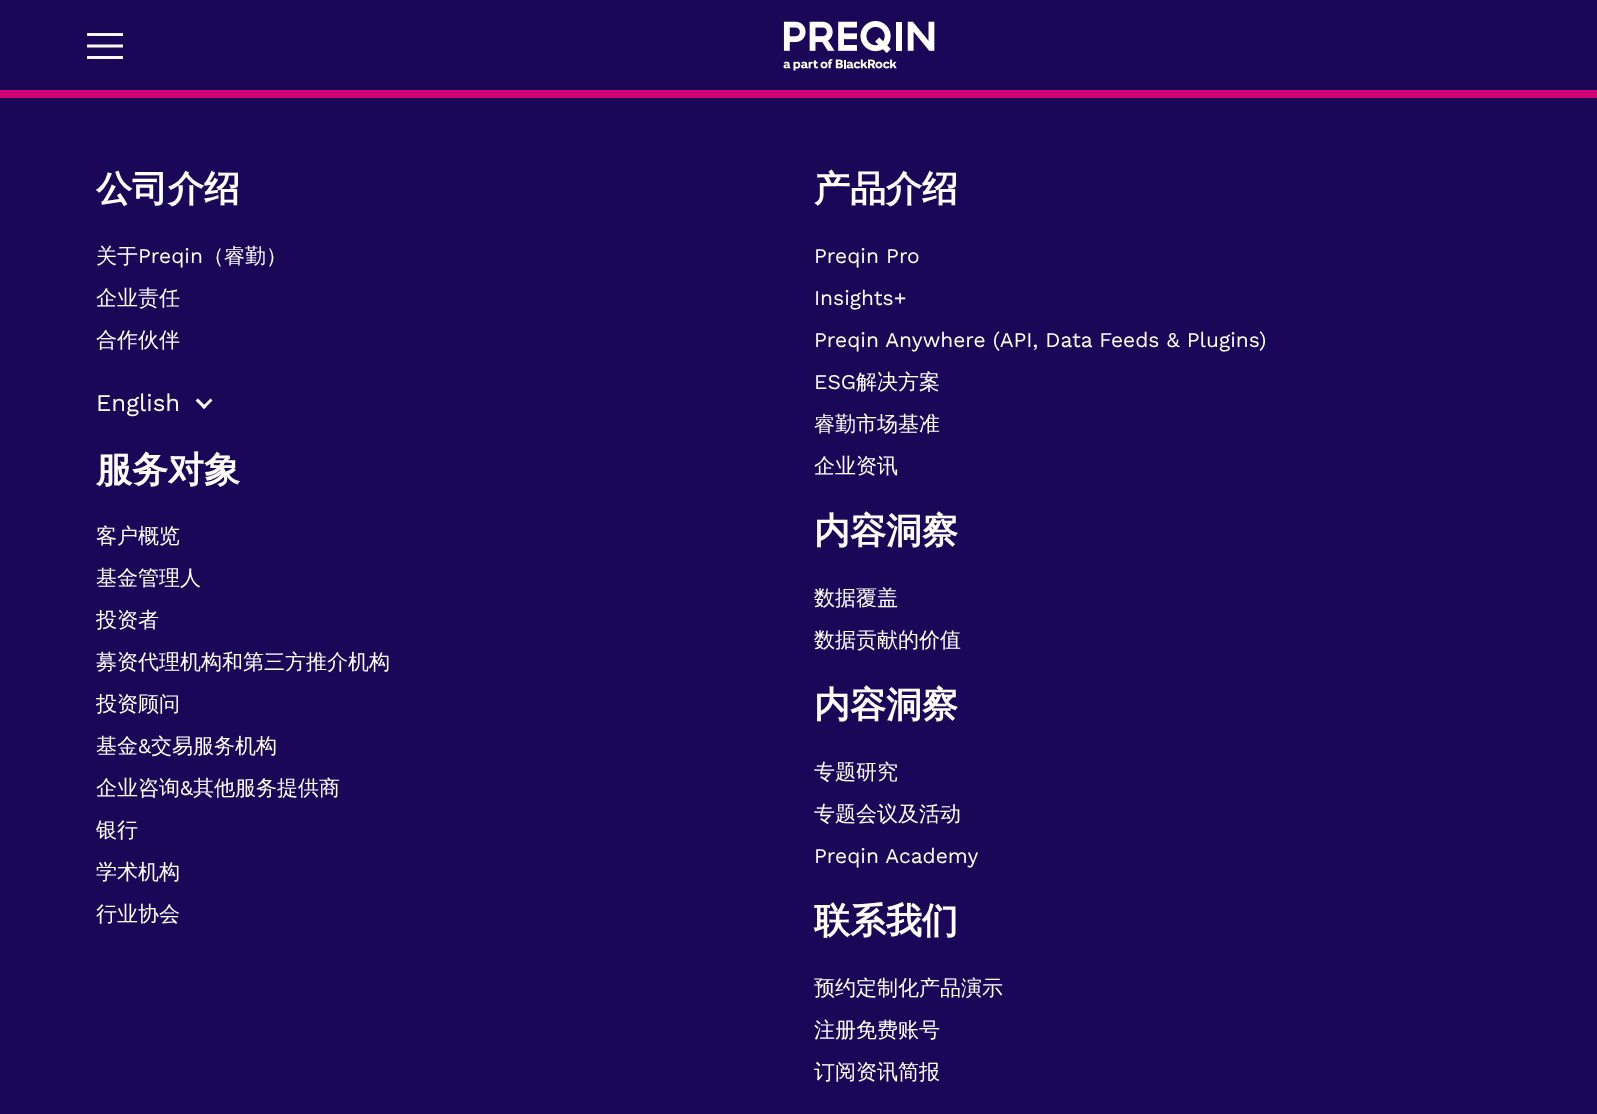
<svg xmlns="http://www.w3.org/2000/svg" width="1597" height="1114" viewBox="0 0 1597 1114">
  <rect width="100%" height="100%" fill="#1b0757"/>
  <path d="M88.5 57.5H121.5M88.5 46H121.5M88.5 34.5H121.5" fill="none" stroke="#f9f8f7" stroke-width="3" stroke-linecap="square"/>
  <image x="783" y="21" width="152" height="50" href="img/1.png"/>
  <path d="M0 90h1597v8H0z" fill="#d10077"/>
  <path d="M210.5 398.5L212.5 400.5L204 409L202 407Z" fill="#f9f8f7"/>
  <path d="M198 398.5L206.5 407L204 409L195.5 400.5Z" fill="#f9f8f7"/>
  <text x="96" y="201" font-family="WenQuanYi Zen Hei" font-size="36" font-weight="bold" fill="#fff">公司介绍</text>
  <text x="96" y="263" font-family="WenQuanYi Zen Hei" font-size="21" font-weight="500" fill="#fff">关于</text>
  <text x="138" y="263" font-family="Work Sans" font-size="21" fill="#fff">Preqin</text>
  <g font-family="WenQuanYi Zen Hei" font-size="21" font-weight="500" fill="#fff">
    <text x="203" y="263">（睿勤）</text>
    <text x="96" y="305">企业责任</text>
    <text x="96" y="347">合作伙伴</text>
  </g>
  <text x="96" y="411" font-family="Work Sans" font-size="24" fill="#fff">English</text>
  <text x="814" y="201" font-family="WenQuanYi Zen Hei" font-size="36" font-weight="bold" fill="#fff">产品介绍</text>
  <g font-family="Work Sans" font-size="21" fill="#fff">
    <text x="814" y="263">Preqin Pro</text>
    <text x="814" y="305">Insights+</text>
    <text x="814" y="347">Preqin Anywhere (API, Data Feeds &amp; Plugins)</text>
    <text x="814" y="389">ESG</text>
  </g>
  <g font-family="WenQuanYi Zen Hei" font-size="21" font-weight="500" fill="#fff">
    <text x="856" y="389">解决方案</text>
    <text x="814" y="431">睿勤市场基准</text>
    <text x="814" y="473">企业资讯</text>
  </g>
  <text x="96" y="482" font-family="WenQuanYi Zen Hei" font-size="36" font-weight="bold" fill="#fff">服务对象</text>
  <g font-family="WenQuanYi Zen Hei" font-size="21" font-weight="500" fill="#fff">
    <text x="96" y="543">客户概览</text>
    <text x="96" y="585">基金管理人</text>
    <text x="96" y="627">投资者</text>
    <text x="96" y="669">募资代理机构和第三方推介机构</text>
    <text x="96" y="711">投资顾问</text>
    <text x="96" y="753">基金</text>
  </g>
  <text x="138" y="753" font-family="Work Sans" font-size="21" fill="#fff">&amp;</text>
  <g font-family="WenQuanYi Zen Hei" font-size="21" font-weight="500" fill="#fff">
    <text x="151" y="753">交易服务机构</text>
    <text x="96" y="795">企业咨询</text>
  </g>
  <text x="180" y="795" font-family="Work Sans" font-size="21" fill="#fff">&amp;</text>
  <g font-family="WenQuanYi Zen Hei" font-size="21" font-weight="500" fill="#fff">
    <text x="193" y="795">其他服务提供商</text>
    <text x="96" y="837">银行</text>
    <text x="96" y="879">学术机构</text>
    <text x="96" y="921">行业协会</text>
  </g>
  <text x="814" y="543" font-family="WenQuanYi Zen Hei" font-size="36" font-weight="bold" fill="#fff">内容洞察</text>
  <g font-family="WenQuanYi Zen Hei" font-size="21" font-weight="500" fill="#fff">
    <text x="814" y="605">数据覆盖</text>
    <text x="814" y="647">数据贡献的价值</text>
  </g>
  <text x="814" y="717" font-family="WenQuanYi Zen Hei" font-size="36" font-weight="bold" fill="#fff">内容洞察</text>
  <g font-family="WenQuanYi Zen Hei" font-size="21" font-weight="500" fill="#fff">
    <text x="814" y="779">专题研究</text>
    <text x="814" y="821">专题会议及活动</text>
  </g>
  <text x="814" y="863" font-family="Work Sans" font-size="21" fill="#fff">Preqin Academy</text>
  <text x="814" y="933" font-family="WenQuanYi Zen Hei" font-size="36" font-weight="bold" fill="#fff">联系我们</text>
  <g font-family="WenQuanYi Zen Hei" font-size="21" font-weight="500" fill="#fff">
    <text x="814" y="995">预约定制化产品演示</text>
    <text x="814" y="1037">注册免费账号</text>
    <text x="814" y="1079">订阅资讯简报</text>
  </g>
</svg>
